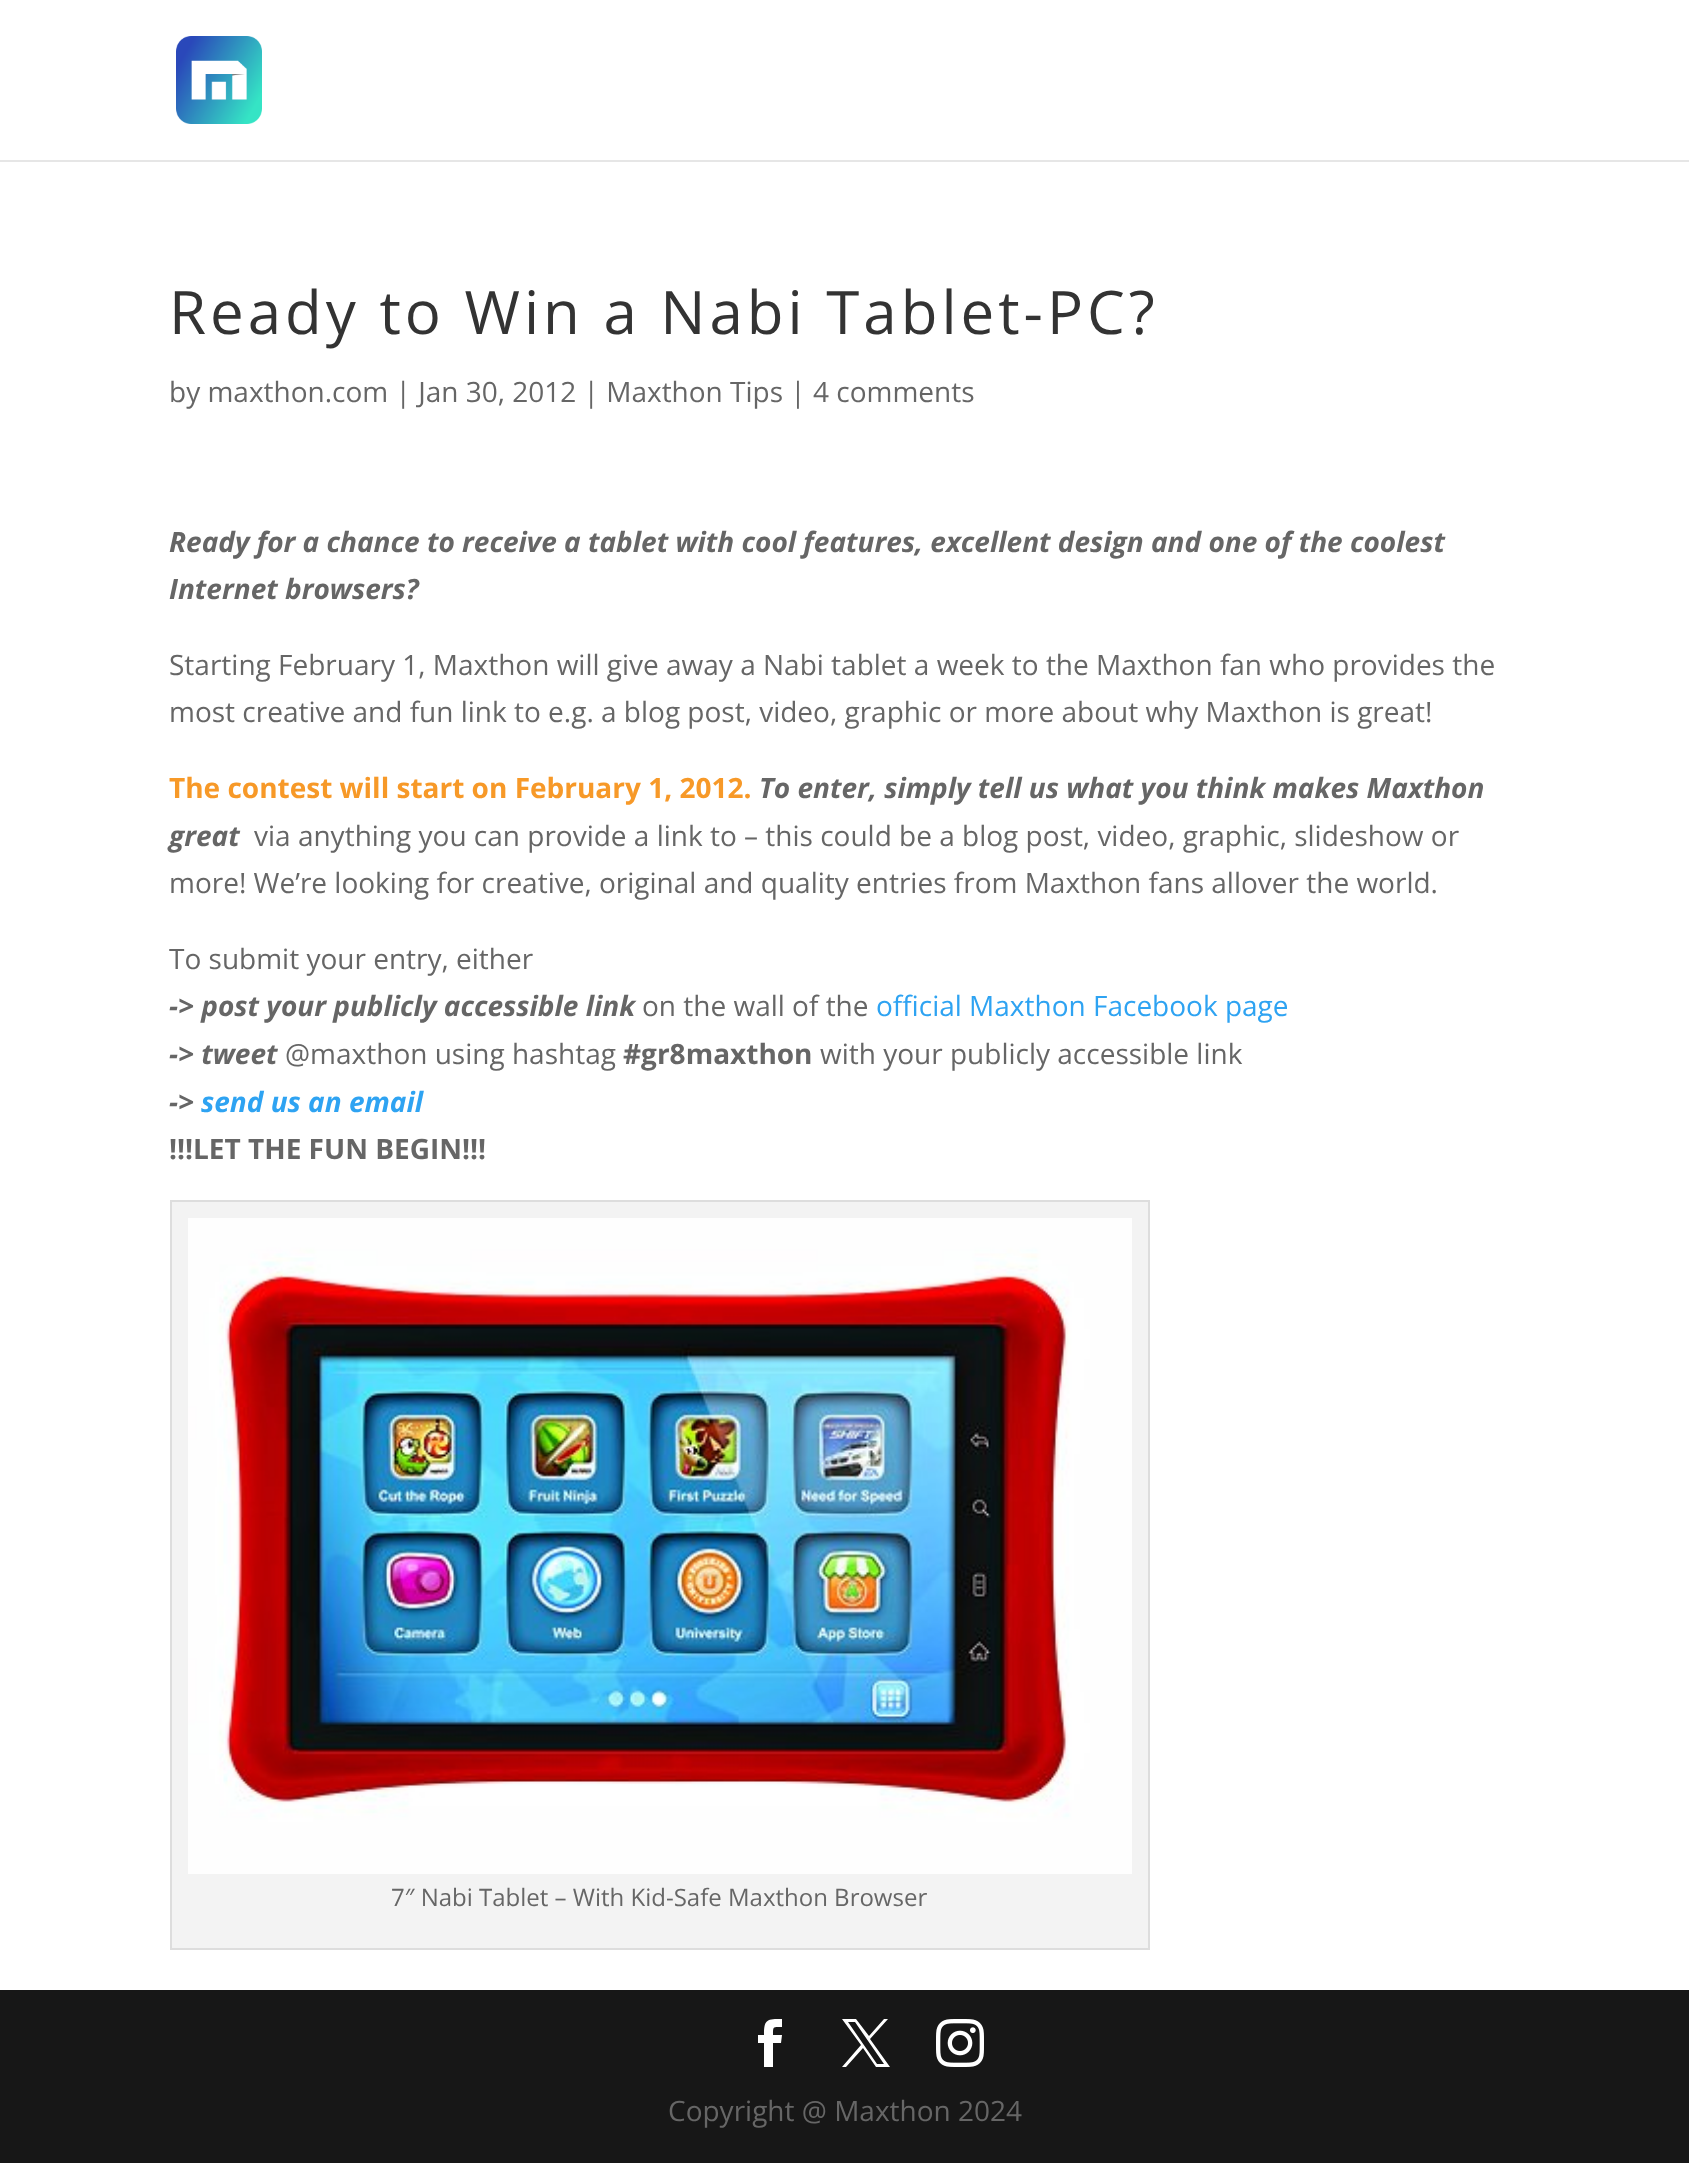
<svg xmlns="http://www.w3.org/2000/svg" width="1689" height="2163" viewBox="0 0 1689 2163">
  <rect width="100%" height="100%" fill="#fff"/>
  <path d="M0 160h1689v2H0z" fill="#e6e6e6"/>
  <image x="176" y="36" width="86" height="88" href="img/1.png"/>
  <path d="M171 1201h978v748H171z" fill="#f3f3f3" stroke="#ddd" stroke-width="2"/>
  <image x="188" y="1218" width="944" height="656" href="img/2.png"/>
  <path d="M0 1990h1689v173H0z" fill="#171717"/>
  <path d="M764 2067H773V2043H781L782 2035H773C773 2026 773 2027 782 2027V2019C767 2019 764 2019 764 2035H758V2043H764Z" fill="#fff"/>
  <path d="M842 2019L861 2045L842 2067H846L863 2048L876 2067H890L870 2039L888 2019H884L869 2036L856 2019ZM848 2022H855L884 2064H877Z" fill="#fff"/>
  <image x="936" y="2019" width="48" height="48" href="img/3.png"/>
  <text x="169" y="334" font-family="Open Sans" font-size="60" letter-spacing="4" fill="#333">Ready to Win a Nabi Tablet-PC?</text>
  <text x="169" y="402" font-family="Open Sans" font-size="28" fill="#666">by maxthon.com | Jan 30, 2012 | Maxthon Tips | 4 comments</text>
  <g font-family="Open Sans" font-size="28" font-weight="bold" font-style="italic" fill="#666">
    <text x="169" y="552">Ready for a chance to receive a tablet with cool features, excellent design and one of the coolest</text>
    <text x="169" y="599">Internet browsers?</text>
  </g>
  <g font-family="Open Sans" font-size="28" fill="#666">
    <text x="169" y="675">Starting February 1, Maxthon will give away a Nabi tablet a week to the Maxthon fan who provides the</text>
    <text x="169" y="722">most creative and fun link to e.g. a blog post, video, graphic or more about why Maxthon is great!</text>
  </g>
  <text x="169" y="798" font-family="Open Sans" font-size="28" font-weight="bold" fill="#f79928">The contest will start on February 1, 2012.</text>
  <g font-family="Open Sans" font-size="28" font-weight="bold" font-style="italic" fill="#666">
    <text x="759" y="798">To enter, simply tell us what you think makes Maxthon</text>
    <text x="169" y="846">great</text>
  </g>
  <g font-family="Open Sans" font-size="28" fill="#666">
    <text x="254" y="846">via anything you can provide a link to – this could be a blog post, video, graphic, slideshow or</text>
    <text x="169" y="893">more! We’re looking for creative, original and quality entries from Maxthon fans allover the world.</text>
    <text x="169" y="969">To submit your entry, either</text>
  </g>
  <text x="169" y="1016" font-family="Open Sans" font-size="28" font-weight="bold" font-style="italic" fill="#666">-&gt; post your publicly accessible link</text>
  <text x="642" y="1016" font-family="Open Sans" font-size="28" fill="#666">on the wall of the</text>
  <text x="876" y="1016" font-family="Open Sans" font-size="28" fill="#2ea3f2">official Maxthon Facebook page</text>
  <text x="169" y="1064" font-family="Open Sans" font-size="28" font-weight="bold" font-style="italic" fill="#666">-&gt; tweet</text>
  <text x="285" y="1064" font-family="Open Sans" font-size="28" fill="#666">@maxthon using hashtag</text>
  <text x="623" y="1064" font-family="Open Sans" font-size="28" font-weight="bold" fill="#666">#gr8maxthon</text>
  <text x="820" y="1064" font-family="Open Sans" font-size="28" fill="#666">with your publicly accessible link</text>
  <text x="169" y="1112" font-family="Open Sans" font-size="28" font-weight="bold" font-style="italic" fill="#666">-&gt;</text>
  <text x="201" y="1112" font-family="Open Sans" font-size="28" font-weight="bold" font-style="italic" fill="#2ea3f2">send us an email</text>
  <text x="169" y="1159" font-family="Open Sans" font-size="28" font-weight="bold" fill="#666">!!!LET THE FUN BEGIN!!!</text>
  <text x="391" y="1906" font-family="Open Sans" font-size="24" fill="#666">7″ Nabi Tablet – With Kid-Safe Maxthon Browser</text>
  <text x="668" y="2121" font-family="Open Sans" font-size="28" fill="#666">Copyright @ Maxthon 2024</text>
</svg>
